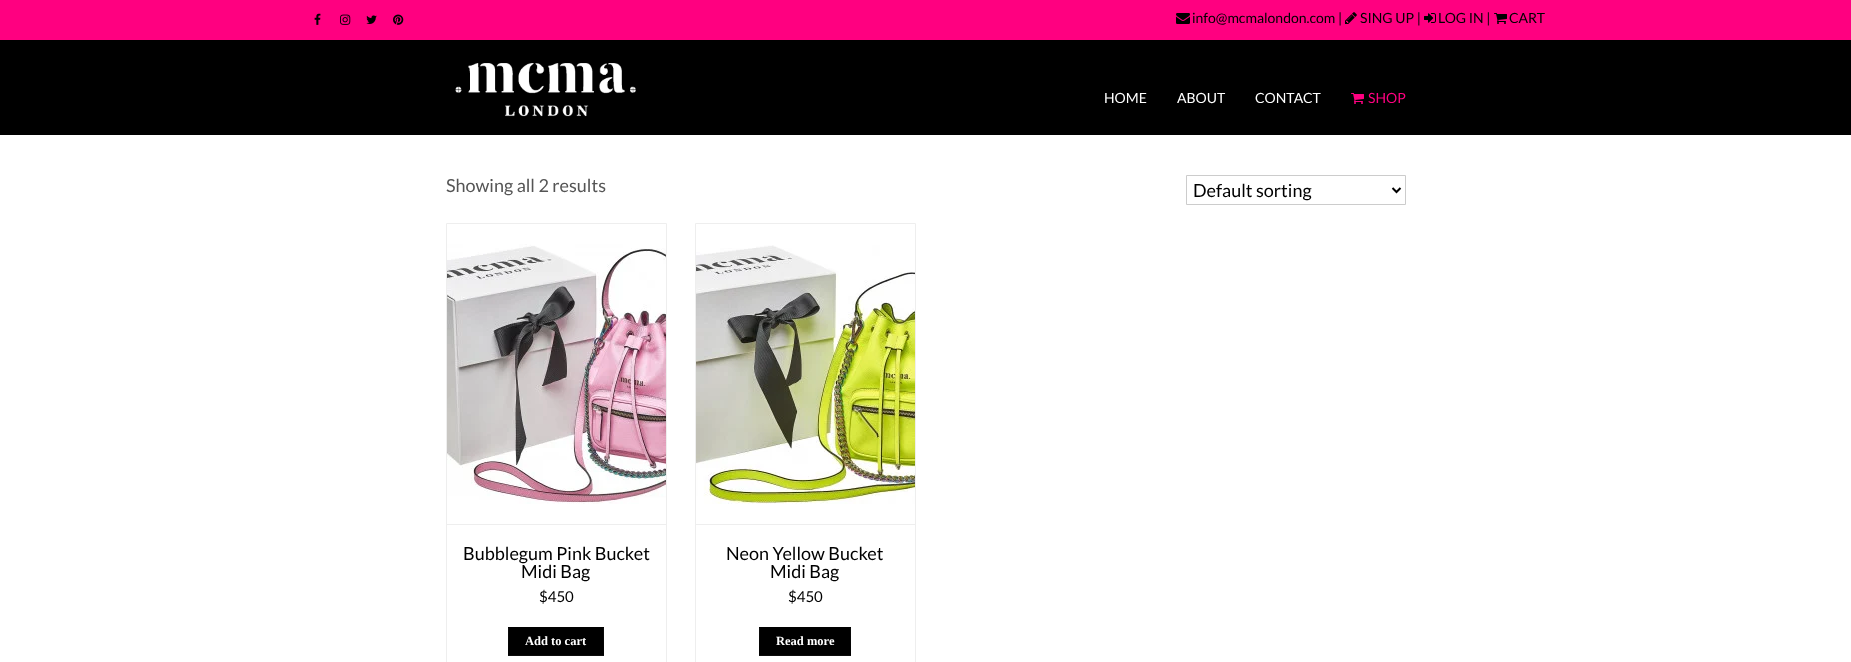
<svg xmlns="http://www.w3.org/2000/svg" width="1851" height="662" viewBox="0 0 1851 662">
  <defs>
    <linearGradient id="g1" gradientUnits="userSpaceOnUse" x1="556" y1="628" x2="556" y2="655"><stop offset="0" stop-color="#0d0d0d"/><stop offset="1" stop-color="#000"/></linearGradient>
    <linearGradient id="g2" gradientUnits="userSpaceOnUse" x1="556" y1="655" x2="556" y2="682"><stop offset="0" stop-color="#0d0d0d"/><stop offset="1" stop-color="#000"/></linearGradient>
    <linearGradient id="g3" gradientUnits="userSpaceOnUse" x1="805" y1="628" x2="805" y2="655"><stop offset="0" stop-color="#0d0d0d"/><stop offset="1" stop-color="#000"/></linearGradient>
    <linearGradient id="g4" gradientUnits="userSpaceOnUse" x1="805" y1="655" x2="805" y2="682"><stop offset="0" stop-color="#0d0d0d"/><stop offset="1" stop-color="#000"/></linearGradient>
  </defs>
  <rect width="100%" height="100%" fill="#fff"/>
  <path d="M0 40h1851v95H0z" fill="#000"/>
  <path d="M0 0h1851v40H0z" fill="#ff0080"/>
  <image x="314" y="13" width="7" height="12" href="img/1.png"/>
  <image x="340" y="14" width="11" height="11" href="img/2.png"/>
  <image x="366" y="15" width="11" height="9" href="img/3.png"/>
  <image x="393" y="14" width="11" height="11" href="img/4.png"/>
  <image x="1176" y="13" width="14" height="11" href="img/5.png"/>
  <image x="1345" y="12" width="12" height="12" href="img/6.png"/>
  <image x="1424" y="13" width="12" height="10" href="img/7.png"/>
  <image x="1494" y="13" width="13" height="11" href="img/8.png"/>
  <image x="455" y="63" width="181" height="54" href="img/9.png"/>
  <image x="1351" y="93" width="13" height="11" href="img/10.png"/>
  <path d="M1186.5 175.5h219v29H1186.5z" fill="none" stroke="#ccc"/>
  <path d="M1392.5 188L1396.5 192L1400.5 188" fill="none" stroke="#000" stroke-width="2"/>
  <path d="M446.5 223.5h220v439H446.5z" fill="none" stroke="#eee"/>
  <path d="M447 524h219v1H447z" fill="#eee"/>
  <image x="447" y="244" width="219" height="260" href="img/11.png"/>
  <path d="M508 627h96v1H508z" fill="#000"/>
  <path d="M508 628h96v27H508z" fill="url(#g1)"/>
  <path d="M508 655h96v1H508z" fill="url(#g2)"/>
  <rect x="509" y="628" width="94" height="27" rx="1" fill="#000"/>
  <path d="M695.5 223.5h220v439H695.5z" fill="none" stroke="#eee"/>
  <path d="M696 524h219v1H696z" fill="#eee"/>
  <image x="696" y="245" width="219" height="259" href="img/12.png"/>
  <path d="M759 627h92v1H759z" fill="#000"/>
  <path d="M759 628h92v27H759z" fill="url(#g3)"/>
  <path d="M759 655h92v1H759z" fill="url(#g4)"/>
  <rect x="760" y="628" width="90" height="27" rx="1" fill="#000"/>
  <g font-family="Lato" font-size="14" fill="#000">
    <text x="1192" y="23">info@mcmalondon.com |</text>
    <text x="1360" y="23">SING UP |</text>
    <text x="1438" y="23">LOG IN |</text>
    <text x="1509" y="23">CART</text>
  </g>
  <g font-family="Lato" font-size="14" fill="#fff">
    <text x="1104" y="103">HOME</text>
    <text x="1177" y="103">ABOUT</text>
    <text x="1255" y="103">CONTACT</text>
  </g>
  <text x="1368" y="103" font-family="Lato" font-size="14" fill="#ff0080">SHOP</text>
  <text x="446" y="192" font-family="Lato" font-size="18" fill="#555">Showing all 2 results</text>
  <g font-family="Lato" font-size="18" fill="#000">
    <text x="1193" y="197">Default sorting</text>
    <text x="463" y="560">Bubblegum Pink Bucket</text>
    <text x="521" y="578">Midi Bag</text>
  </g>
  <text x="539" y="602" font-family="Lato" font-size="15" fill="#000">$450</text>
  <text x="525" y="645" font-family="Liberation Serif" font-size="12.5" font-weight="bold" fill="#fff">Add to cart</text>
  <g font-family="Lato" font-size="18" fill="#000">
    <text x="726" y="560">Neon Yellow Bucket</text>
    <text x="770" y="578">Midi Bag</text>
  </g>
  <text x="788" y="602" font-family="Lato" font-size="15" fill="#000">$450</text>
  <text x="776" y="645" font-family="Liberation Serif" font-size="12.5" font-weight="bold" fill="#fff">Read more</text>
</svg>
